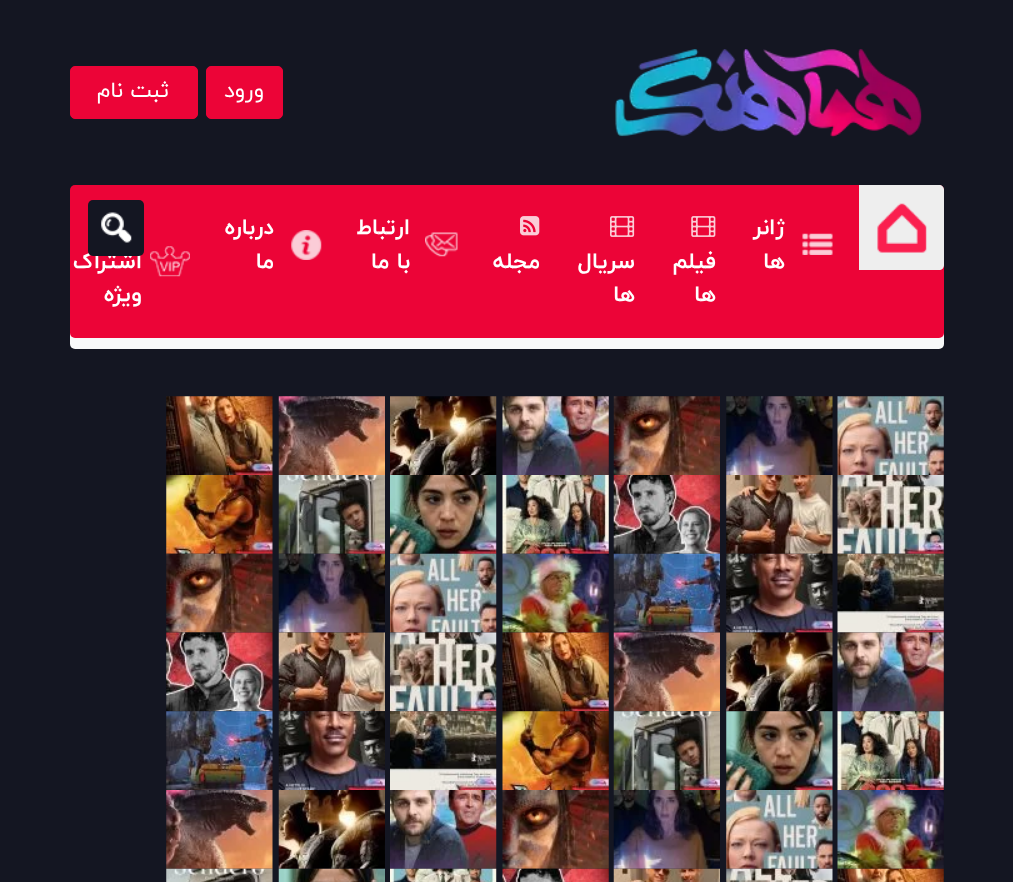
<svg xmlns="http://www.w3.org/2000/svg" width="1013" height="882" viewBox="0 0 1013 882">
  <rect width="100%" height="100%" fill="#141622"/>
  <image x="615" y="48" width="307" height="90" href="img/1.png"/>
  <rect x="206.5" y="66.5" width="76" height="52" rx="4.5" fill="#ec0437" stroke="#ec0437"/>
  <rect x="70.5" y="66.5" width="127" height="52" rx="4.5" fill="#ec0437" stroke="#ec0437"/>
  <rect x="70" y="279" width="874" height="70" rx="5" fill="#f8f9fa"/>
  <rect x="70" y="185" width="874" height="153" rx="5" fill="#ec0437"/>
  <path d="M859 185H939C942 185 944 187 944 190V265C944 268 942 270 939 270H859Z" fill="#eee"/>
  <image x="877" y="203" width="50" height="50" href="img/3.png"/>
  <image x="802" y="233" width="31" height="22" href="img/4.png"/>
  <image x="691" y="216" width="25" height="21" href="img/5.png"/>
  <image x="610" y="216" width="25" height="21" href="img/6.png"/>
  <image x="520" y="216" width="20" height="20" href="img/7.png"/>
  <image x="425" y="232" width="33" height="25" href="img/8.png"/>
  <image x="291" y="230" width="31" height="30" href="img/9.png"/>
  <image x="150" y="246" width="40" height="31" href="img/10.png"/>
  <image x="837" y="396" width="107" height="79" href="img/11.png"/>
  <image x="726" y="396" width="107" height="79" href="img/12.png"/>
  <image x="613" y="396" width="107" height="79" href="img/13.png"/>
  <image x="502" y="396" width="107" height="79" href="img/14.png"/>
  <image x="390" y="396" width="107" height="79" href="img/15.png"/>
  <image x="278" y="396" width="107" height="79" href="img/16.png"/>
  <image x="166" y="396" width="107" height="79" href="img/17.png"/>
  <image x="837" y="475" width="107" height="79" href="img/18.png"/>
  <image x="726" y="475" width="107" height="79" href="img/19.png"/>
  <image x="613" y="475" width="107" height="79" href="img/20.png"/>
  <image x="502" y="475" width="107" height="79" href="img/21.png"/>
  <image x="390" y="475" width="107" height="79" href="img/22.png"/>
  <image x="278" y="475" width="107" height="79" href="img/23.png"/>
  <image x="166" y="475" width="107" height="79" href="img/24.png"/>
  <image x="837" y="553" width="107" height="80" href="img/25.png"/>
  <image x="726" y="553" width="107" height="80" href="img/26.png"/>
  <image x="613" y="553" width="107" height="80" href="img/27.png"/>
  <image x="502" y="553" width="107" height="80" href="img/28.png"/>
  <image x="390" y="553" width="107" height="80" href="img/29.png"/>
  <image x="278" y="553" width="107" height="80" href="img/30.png"/>
  <image x="166" y="553" width="107" height="80" href="img/31.png"/>
  <image x="837" y="632" width="107" height="80" href="img/32.png"/>
  <image x="726" y="632" width="107" height="80" href="img/33.png"/>
  <image x="613" y="632" width="107" height="80" href="img/34.png"/>
  <image x="502" y="632" width="107" height="80" href="img/35.png"/>
  <image x="390" y="632" width="107" height="80" href="img/36.png"/>
  <image x="278" y="632" width="107" height="80" href="img/37.png"/>
  <image x="166" y="632" width="107" height="80" href="img/38.png"/>
  <image x="837" y="711" width="107" height="79" href="img/39.png"/>
  <image x="726" y="711" width="107" height="79" href="img/40.png"/>
  <image x="613" y="711" width="107" height="79" href="img/41.png"/>
  <image x="502" y="711" width="107" height="79" href="img/42.png"/>
  <image x="390" y="711" width="107" height="79" href="img/43.png"/>
  <image x="278" y="711" width="107" height="79" href="img/44.png"/>
  <image x="166" y="711" width="107" height="79" href="img/45.png"/>
  <image x="837" y="790" width="107" height="79" href="img/46.png"/>
  <image x="726" y="790" width="107" height="79" href="img/47.png"/>
  <image x="613" y="790" width="107" height="79" href="img/48.png"/>
  <image x="502" y="790" width="107" height="79" href="img/49.png"/>
  <image x="390" y="790" width="107" height="79" href="img/50.png"/>
  <image x="278" y="790" width="107" height="79" href="img/51.png"/>
  <image x="166" y="790" width="107" height="79" href="img/52.png"/>
  <image x="837" y="868" width="107" height="14" href="img/53.png"/>
  <image x="726" y="868" width="107" height="14" href="img/54.png"/>
  <image x="613" y="868" width="107" height="14" href="img/55.png"/>
  <image x="502" y="868" width="107" height="14" href="img/56.png"/>
  <image x="390" y="868" width="107" height="14" href="img/57.png"/>
  <image x="278" y="868" width="107" height="14" href="img/58.png"/>
  <image x="166" y="868" width="107" height="14" href="img/59.png"/>
  <g font-family="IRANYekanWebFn" font-size="22" direction="rtl" fill="#fff">
    <text x="264" y="97">ورود</text>
    <text x="169" y="97">ثبت نام</text>
  </g>
  <g font-family="IRANYekanWebFn" font-size="22.5" font-weight="bold" direction="rtl" fill="#fff">
    <text x="785" y="234">ژانر</text>
    <text x="785" y="268">ها</text>
    <text x="716" y="268">فیلم</text>
    <text x="716" y="301">ها</text>
    <text x="635" y="268">سریال</text>
    <text x="635" y="301">ها</text>
    <text x="540" y="268">مجله</text>
    <text x="410" y="234">ارتباط</text>
    <text x="410" y="268">با ما</text>
    <text x="274" y="234">درباره</text>
    <text x="274" y="268">ما</text>
    <text x="142" y="268">اشتراک</text>
  </g>
  <rect x="88" y="200" width="56" height="56" rx="5" fill="#141622"/>
  <image x="101" y="212" width="31" height="31" href="img/2.png"/>
  <text x="142" y="301" font-family="IRANYekanWebFn" font-size="22.5" font-weight="bold" direction="rtl" fill="#fff">ویژه</text>
</svg>
